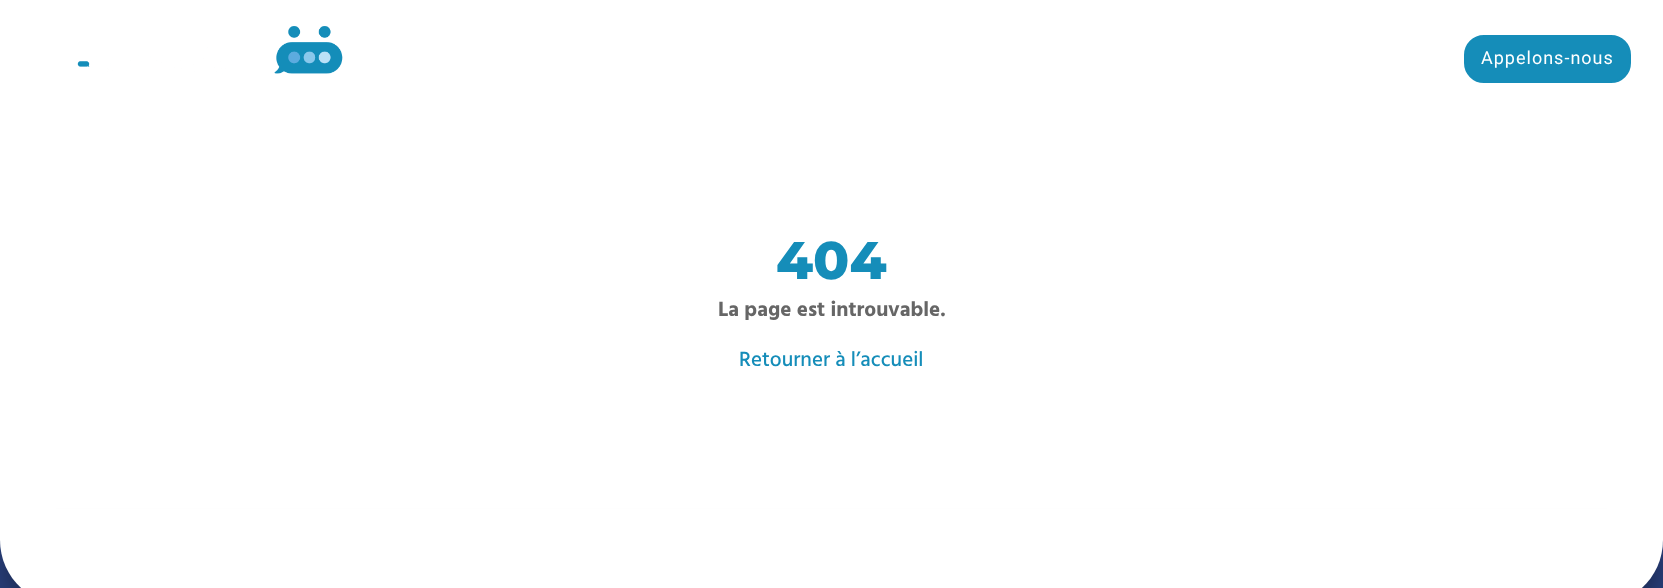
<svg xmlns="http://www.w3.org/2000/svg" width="1663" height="588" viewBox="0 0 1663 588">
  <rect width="100%" height="100%" fill="#fff"/>
  <image x="77" y="26" width="266" height="48" href="img/1.png"/>
  <rect x="1465" y="36" width="165" height="46" rx="19" fill="#158db9" stroke="#158db9" stroke-width="2"/>
  <path d="M0 540h1663v48H0z" fill="#273c75"/>
  <rect x="6" y="527" width="1651" height="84" rx="59" fill="#00000040" filter="blur(9px)"/>
  <path d="M0 509H1663V540C1663 576 1634 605 1598 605H65C29 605 0 576 0 540Z" fill="#fff"/>
  <text x="1481" y="64" font-family="Heebo" font-size="18" letter-spacing="1" fill="#fff">Appelons-nous</text>
  <text x="776" y="279" font-family="Montserrat" font-size="53" font-weight="800" fill="#158db9">404</text>
  <text x="718" y="316" font-family="Hind" font-size="21" font-weight="bold" fill="#666">La page est introuvable.</text>
  <text x="739" y="366" font-family="Hind" font-size="21" font-weight="500" fill="#158db9">Retourner à l’accueil</text>
</svg>
